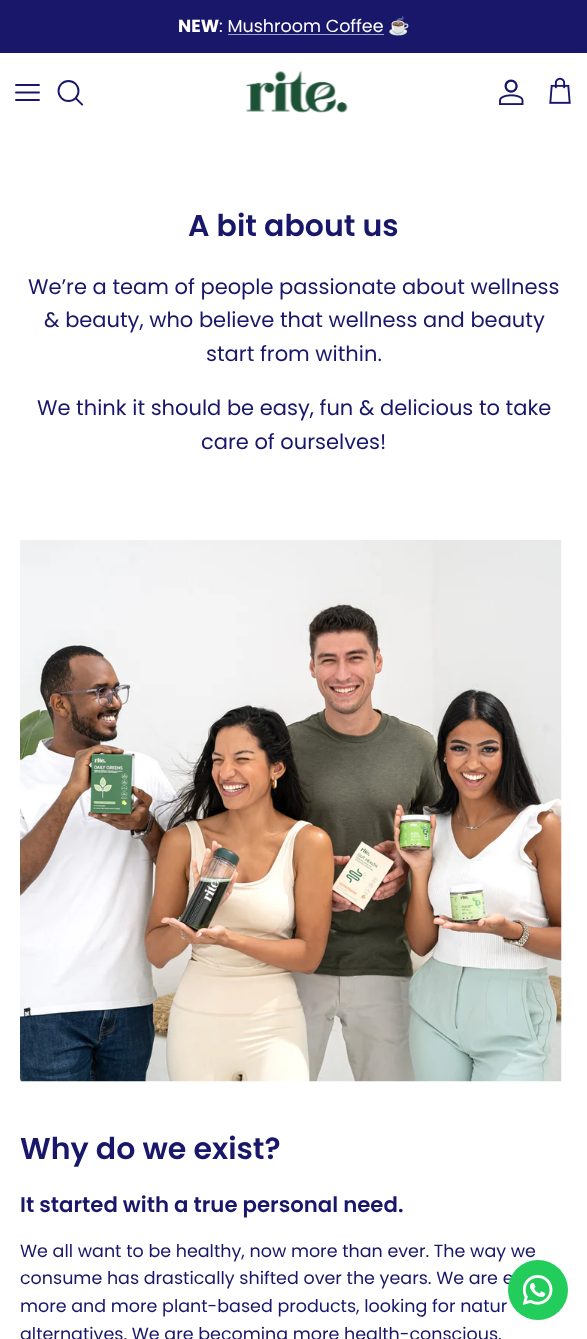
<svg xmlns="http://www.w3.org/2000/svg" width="587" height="1339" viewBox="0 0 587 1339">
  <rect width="100%" height="100%" fill="#fff"/>
  <path d="M0 0h587v53H0z" fill="#191769"/>
  <path d="M228 34h156v1H228z" fill="#a3a2c3"/>
  <path d="M16 92.5H39M16 85H39M16 100H39" fill="none" stroke="#191769" stroke-width="1.9" stroke-linecap="round" stroke-linejoin="round"/>
  <circle cx="68.5" cy="91" r="10" fill="none" stroke="#191769" stroke-width="1.9"/>
  <path d="M76 98.5L82 104.5" fill="none" stroke="#191769" stroke-width="1.9" stroke-linecap="square"/>
  <image x="246" y="71" width="102" height="42" href="img/1.png"/>
  <image x="499" y="79" width="25" height="26" href="img/2.png"/>
  <image x="549" y="77" width="22" height="27" href="img/3.png"/>
  <image x="20" y="540" width="542" height="542" href="img/4.png"/>
  <text x="178" y="32" font-family="Poppins" font-size="17.5" font-weight="bold" fill="#fff">NEW</text>
  <text x="219" y="32" font-family="Poppins" font-size="17.5" fill="#fff">: Mushroom Coffee</text>
  <text x="388" y="32" font-family="Noto Color Emoji" font-size="17.5" fill="#fff">☕</text>
  <text x="188" y="236" font-family="Poppins" font-size="30" font-weight="600" fill="#191769">A bit about us</text>
  <g font-family="Poppins" font-size="21" fill="#191769">
    <text x="28" y="294">We’re a team of people passionate about wellness</text>
    <text x="44" y="327">&amp; beauty, who believe that wellness and beauty</text>
    <text x="206" y="361">start from within.</text>
    <text x="37" y="415">We think it should be easy, fun &amp; delicious to take</text>
    <text x="201" y="449">care of ourselves!</text>
  </g>
  <text x="20" y="1159" font-family="Poppins" font-size="30" font-weight="600" fill="#191769">Why do we exist?</text>
  <text x="20" y="1212" font-family="Poppins" font-size="21.25" font-weight="600" fill="#191769">It started with a true personal need.</text>
  <g font-family="Poppins" font-size="17.5" fill="#191769">
    <text x="20" y="1257">We all want to be healthy, now more than ever. The way we</text>
    <text x="20" y="1284">consume has drastically shifted over the years. We are e</text>
    <text x="20" y="1312">more and more plant-based products, looking for natur</text>
    <text x="20" y="1340">alternatives. We are becoming more health-conscious.</text>
  </g>
  <circle cx="538" cy="1290" r="30" fill="#22cd5b"/>
  <image x="523" y="1275" width="30" height="30" href="img/5.png"/>
</svg>
